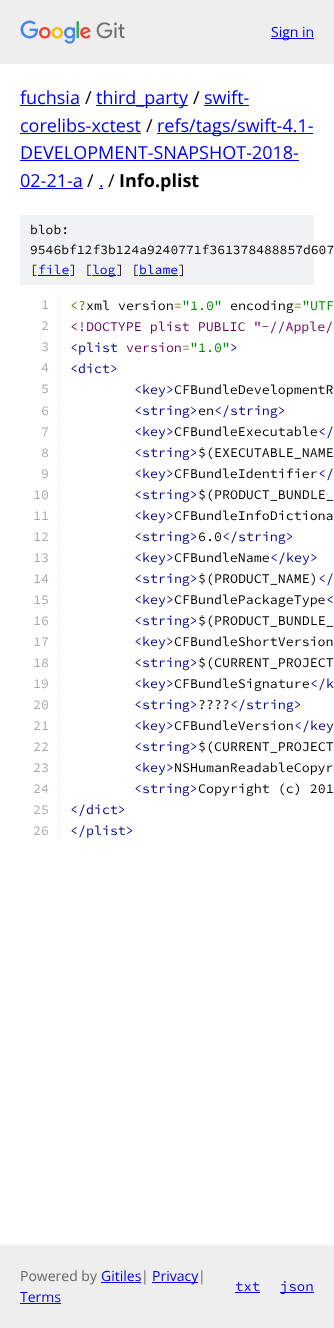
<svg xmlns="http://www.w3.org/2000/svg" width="334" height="1328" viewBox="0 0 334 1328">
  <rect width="100%" height="100%" fill="#fff"/>
  <path d="M0 0h334v64H0z" fill="#eee"/>
  <image x="20" y="20" width="105" height="24" href="img/1.png"/>
  <path d="M271 38h43v1H271z" fill="#00e"/>
  <path d="M20 105h60v1H20z" fill="#00e"/>
  <path d="M96 105h92v1H96z" fill="#00e"/>
  <path d="M204 105h45v1H204z" fill="#00e"/>
  <path d="M20 133h121v1H20z" fill="#00e"/>
  <path d="M157 133h156v1H157z" fill="#00e"/>
  <path d="M20 160h279v1H20z" fill="#00e"/>
  <path d="M20 188h63v1H20z" fill="#00e"/>
  <path d="M99 188h4v1H99z" fill="#00e"/>
  <path d="M20 215h294v70H20z" fill="#f1f2f3"/>
  <path d="M38 275h31v1H38z" fill="#00e"/>
  <path d="M92 275h24v1H92z" fill="#00e"/>
  <path d="M139 275h39v1H139z" fill="#00e"/>
  <path d="M59 295h1v105H59z" fill="#f1f2f3"/>
  <path d="M59 401h1v20H59z" fill="#f1f2f3"/>
  <path d="M59 422h1v20H59z" fill="#f1f2f3"/>
  <path d="M59 443h1v20H59z" fill="#f1f2f3"/>
  <path d="M59 464h1v20H59z" fill="#f1f2f3"/>
  <path d="M59 485h1v20H59z" fill="#f1f2f3"/>
  <path d="M59 506h1v20H59z" fill="#f1f2f3"/>
  <path d="M59 527h1v20H59z" fill="#f1f2f3"/>
  <path d="M59 548h1v20H59z" fill="#f1f2f3"/>
  <path d="M59 569h1v20H59z" fill="#f1f2f3"/>
  <path d="M59 590h1v20H59z" fill="#f1f2f3"/>
  <path d="M59 611h1v20H59z" fill="#f1f2f3"/>
  <path d="M59 632h1v20H59z" fill="#f1f2f3"/>
  <path d="M59 653h1v20H59z" fill="#f1f2f3"/>
  <path d="M59 674h1v20H59z" fill="#f1f2f3"/>
  <path d="M59 695h1v20H59z" fill="#f1f2f3"/>
  <path d="M59 716h1v20H59z" fill="#f1f2f3"/>
  <path d="M59 737h1v20H59z" fill="#f1f2f3"/>
  <path d="M59 758h1v20H59z" fill="#f1f2f3"/>
  <path d="M59 779h1v20H59z" fill="#f1f2f3"/>
  <path d="M59 800h1v20H59z" fill="#f1f2f3"/>
  <path d="M59 821h1v20H59z" fill="#f1f2f3"/>
  <path d="M0 1245h334v83H0z" fill="#eee"/>
  <path d="M101 1282h40v1H101z" fill="#00e"/>
  <path d="M152 1282h46v1H152z" fill="#00e"/>
  <path d="M20 1303h41v1H20z" fill="#00e"/>
  <path d="M235 1292h25v1H235z" fill="#00e"/>
  <path d="M280 1292h34v1H280z" fill="#00e"/>
  <text x="271" y="37" font-family="Open Sans" font-size="14" fill="#00e">Sign in</text>
  <text x="20" y="104" font-family="Open Sans" font-size="18" fill="#00e">fuchsia</text>
  <text x="85" y="104" font-family="Open Sans" font-size="18" fill="#000">/</text>
  <text x="96" y="104" font-family="Open Sans" font-size="18" fill="#00e">third_party</text>
  <text x="193" y="104" font-family="Open Sans" font-size="18" fill="#000">/</text>
  <g font-family="Open Sans" font-size="18" fill="#00e">
    <text x="204" y="104">swift-</text>
    <text x="20" y="132">corelibs-xctest</text>
  </g>
  <text x="146" y="132" font-family="Open Sans" font-size="18" fill="#000">/</text>
  <g font-family="Open Sans" font-size="18" fill="#00e">
    <text x="157" y="132">refs/tags/swift-4.1-</text>
    <text x="20" y="159">DEVELOPMENT-SNAPSHOT-2018-</text>
    <text x="20" y="187">02-21-a</text>
  </g>
  <text x="87" y="187" font-family="Open Sans" font-size="18" fill="#000">/</text>
  <text x="99" y="187" font-family="Open Sans" font-size="18" fill="#00e">.</text>
  <text x="108" y="187" font-family="Open Sans" font-size="18" fill="#000">/</text>
  <text x="119" y="187" font-family="Open Sans" font-size="18" font-weight="bold" fill="#000">Info.plist</text>
  <g font-family="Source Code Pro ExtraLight" font-size="13" font-weight="200" fill="#000">
    <text x="30" y="234">blob:</text>
    <text x="30" y="254">9546bf12f3b124a9240771f361378488857d607</text>
    <text x="30" y="274">[</text>
  </g>
  <text x="38" y="274" font-family="Source Code Pro ExtraLight" font-size="13" font-weight="200" fill="#00e">file</text>
  <text x="69" y="274" font-family="Source Code Pro ExtraLight" font-size="13" font-weight="200" fill="#000">] [</text>
  <text x="92" y="274" font-family="Source Code Pro ExtraLight" font-size="13" font-weight="200" fill="#00e">log</text>
  <text x="116" y="274" font-family="Source Code Pro ExtraLight" font-size="13" font-weight="200" fill="#000">] [</text>
  <text x="139" y="274" font-family="Source Code Pro ExtraLight" font-size="13" font-weight="200" fill="#00e">blame</text>
  <text x="178" y="274" font-family="Source Code Pro ExtraLight" font-size="13" font-weight="200" fill="#000">]</text>
  <text x="41" y="309" font-family="Source Code Pro ExtraLight" font-size="13.3" font-weight="200" fill="#aaa">1</text>
  <text x="70" y="310" font-family="Source Code Pro ExtraLight" font-size="13.3" font-weight="200" fill="#660">&lt;?</text>
  <text x="86" y="310" font-family="Source Code Pro ExtraLight" font-size="13.3" font-weight="200" fill="#000">xml version</text>
  <text x="174" y="310" font-family="Source Code Pro ExtraLight" font-size="13.3" font-weight="200" fill="#660">=</text>
  <text x="182" y="310" font-family="Source Code Pro ExtraLight" font-size="13.3" font-weight="200" fill="#080">"1.0"</text>
  <text x="230" y="310" font-family="Source Code Pro ExtraLight" font-size="13.3" font-weight="200" fill="#000">encoding</text>
  <text x="294" y="310" font-family="Source Code Pro ExtraLight" font-size="13.3" font-weight="200" fill="#660">=</text>
  <text x="302" y="310" font-family="Source Code Pro ExtraLight" font-size="13.3" font-weight="200" fill="#080">"UTF</text>
  <text x="41" y="330" font-family="Source Code Pro ExtraLight" font-size="13.3" font-weight="200" fill="#aaa">2</text>
  <text x="70" y="331" font-family="Source Code Pro ExtraLight" font-size="13.3" font-weight="200" fill="#606">&lt;!DOCTYPE plist PUBLIC "-//Apple/</text>
  <text x="41" y="351" font-family="Source Code Pro ExtraLight" font-size="13.3" font-weight="200" fill="#aaa">3</text>
  <text x="70" y="352" font-family="Source Code Pro ExtraLight" font-size="13.3" font-weight="200" fill="#008">&lt;plist</text>
  <text x="126" y="352" font-family="Source Code Pro ExtraLight" font-size="13.3" font-weight="200" fill="#606">version</text>
  <text x="182" y="352" font-family="Source Code Pro ExtraLight" font-size="13.3" font-weight="200" fill="#660">=</text>
  <text x="190" y="352" font-family="Source Code Pro ExtraLight" font-size="13.3" font-weight="200" fill="#080">"1.0"</text>
  <text x="230" y="352" font-family="Source Code Pro ExtraLight" font-size="13.3" font-weight="200" fill="#008">&gt;</text>
  <text x="41" y="372" font-family="Source Code Pro ExtraLight" font-size="13.3" font-weight="200" fill="#aaa">4</text>
  <text x="70" y="373" font-family="Source Code Pro ExtraLight" font-size="13.3" font-weight="200" fill="#008">&lt;dict&gt;</text>
  <text x="41" y="393" font-family="Source Code Pro ExtraLight" font-size="13.3" font-weight="200" fill="#aaa">5</text>
  <text x="134" y="394" font-family="Source Code Pro ExtraLight" font-size="13.3" font-weight="200" fill="#008">&lt;key&gt;</text>
  <text x="174" y="394" font-family="Source Code Pro ExtraLight" font-size="13.3" font-weight="200" fill="#000">CFBundleDevelopmentR</text>
  <text x="41" y="415" font-family="Source Code Pro ExtraLight" font-size="13.3" font-weight="200" fill="#aaa">6</text>
  <text x="134" y="415" font-family="Source Code Pro ExtraLight" font-size="13.3" font-weight="200" fill="#008">&lt;string&gt;</text>
  <text x="198" y="415" font-family="Source Code Pro ExtraLight" font-size="13.3" font-weight="200" fill="#000">en</text>
  <text x="214" y="415" font-family="Source Code Pro ExtraLight" font-size="13.3" font-weight="200" fill="#008">&lt;/string&gt;</text>
  <text x="41" y="436" font-family="Source Code Pro ExtraLight" font-size="13.3" font-weight="200" fill="#aaa">7</text>
  <text x="134" y="436" font-family="Source Code Pro ExtraLight" font-size="13.3" font-weight="200" fill="#008">&lt;key&gt;</text>
  <text x="174" y="436" font-family="Source Code Pro ExtraLight" font-size="13.3" font-weight="200" fill="#000">CFBundleExecutable</text>
  <text x="318" y="436" font-family="Source Code Pro ExtraLight" font-size="13.3" font-weight="200" fill="#008">&lt;/</text>
  <text x="41" y="457" font-family="Source Code Pro ExtraLight" font-size="13.3" font-weight="200" fill="#aaa">8</text>
  <text x="134" y="457" font-family="Source Code Pro ExtraLight" font-size="13.3" font-weight="200" fill="#008">&lt;string&gt;</text>
  <text x="198" y="457" font-family="Source Code Pro ExtraLight" font-size="13.3" font-weight="200" fill="#000">$(EXECUTABLE_NAME</text>
  <text x="41" y="478" font-family="Source Code Pro ExtraLight" font-size="13.3" font-weight="200" fill="#aaa">9</text>
  <text x="134" y="478" font-family="Source Code Pro ExtraLight" font-size="13.3" font-weight="200" fill="#008">&lt;key&gt;</text>
  <text x="174" y="478" font-family="Source Code Pro ExtraLight" font-size="13.3" font-weight="200" fill="#000">CFBundleIdentifier</text>
  <text x="318" y="478" font-family="Source Code Pro ExtraLight" font-size="13.3" font-weight="200" fill="#008">&lt;/</text>
  <text x="33" y="499" font-family="Source Code Pro ExtraLight" font-size="13.3" font-weight="200" fill="#aaa">10</text>
  <text x="134" y="499" font-family="Source Code Pro ExtraLight" font-size="13.3" font-weight="200" fill="#008">&lt;string&gt;</text>
  <text x="198" y="499" font-family="Source Code Pro ExtraLight" font-size="13.3" font-weight="200" fill="#000">$(PRODUCT_BUNDLE_</text>
  <text x="33" y="520" font-family="Source Code Pro ExtraLight" font-size="13.3" font-weight="200" fill="#aaa">11</text>
  <text x="134" y="520" font-family="Source Code Pro ExtraLight" font-size="13.3" font-weight="200" fill="#008">&lt;key&gt;</text>
  <text x="174" y="520" font-family="Source Code Pro ExtraLight" font-size="13.3" font-weight="200" fill="#000">CFBundleInfoDictiona</text>
  <text x="33" y="541" font-family="Source Code Pro ExtraLight" font-size="13.3" font-weight="200" fill="#aaa">12</text>
  <text x="134" y="541" font-family="Source Code Pro ExtraLight" font-size="13.3" font-weight="200" fill="#008">&lt;string&gt;</text>
  <text x="198" y="541" font-family="Source Code Pro ExtraLight" font-size="13.3" font-weight="200" fill="#000">6.0</text>
  <text x="222" y="541" font-family="Source Code Pro ExtraLight" font-size="13.3" font-weight="200" fill="#008">&lt;/string&gt;</text>
  <text x="33" y="562" font-family="Source Code Pro ExtraLight" font-size="13.3" font-weight="200" fill="#aaa">13</text>
  <text x="134" y="562" font-family="Source Code Pro ExtraLight" font-size="13.3" font-weight="200" fill="#008">&lt;key&gt;</text>
  <text x="174" y="562" font-family="Source Code Pro ExtraLight" font-size="13.3" font-weight="200" fill="#000">CFBundleName</text>
  <text x="270" y="562" font-family="Source Code Pro ExtraLight" font-size="13.3" font-weight="200" fill="#008">&lt;/key&gt;</text>
  <text x="33" y="583" font-family="Source Code Pro ExtraLight" font-size="13.3" font-weight="200" fill="#aaa">14</text>
  <text x="134" y="583" font-family="Source Code Pro ExtraLight" font-size="13.3" font-weight="200" fill="#008">&lt;string&gt;</text>
  <text x="198" y="583" font-family="Source Code Pro ExtraLight" font-size="13.3" font-weight="200" fill="#000">$(PRODUCT_NAME)</text>
  <text x="318" y="583" font-family="Source Code Pro ExtraLight" font-size="13.3" font-weight="200" fill="#008">&lt;/</text>
  <text x="33" y="604" font-family="Source Code Pro ExtraLight" font-size="13.3" font-weight="200" fill="#aaa">15</text>
  <text x="134" y="604" font-family="Source Code Pro ExtraLight" font-size="13.3" font-weight="200" fill="#008">&lt;key&gt;</text>
  <text x="174" y="604" font-family="Source Code Pro ExtraLight" font-size="13.3" font-weight="200" fill="#000">CFBundlePackageType</text>
  <text x="326" y="604" font-family="Source Code Pro ExtraLight" font-size="13.3" font-weight="200" fill="#008">&lt;</text>
  <text x="33" y="625" font-family="Source Code Pro ExtraLight" font-size="13.3" font-weight="200" fill="#aaa">16</text>
  <text x="134" y="625" font-family="Source Code Pro ExtraLight" font-size="13.3" font-weight="200" fill="#008">&lt;string&gt;</text>
  <text x="198" y="625" font-family="Source Code Pro ExtraLight" font-size="13.3" font-weight="200" fill="#000">$(PRODUCT_BUNDLE_</text>
  <text x="33" y="646" font-family="Source Code Pro ExtraLight" font-size="13.3" font-weight="200" fill="#aaa">17</text>
  <text x="134" y="646" font-family="Source Code Pro ExtraLight" font-size="13.3" font-weight="200" fill="#008">&lt;key&gt;</text>
  <text x="174" y="646" font-family="Source Code Pro ExtraLight" font-size="13.3" font-weight="200" fill="#000">CFBundleShortVersion</text>
  <text x="33" y="667" font-family="Source Code Pro ExtraLight" font-size="13.3" font-weight="200" fill="#aaa">18</text>
  <text x="134" y="667" font-family="Source Code Pro ExtraLight" font-size="13.3" font-weight="200" fill="#008">&lt;string&gt;</text>
  <text x="198" y="667" font-family="Source Code Pro ExtraLight" font-size="13.3" font-weight="200" fill="#000">$(CURRENT_PROJECT</text>
  <text x="33" y="688" font-family="Source Code Pro ExtraLight" font-size="13.3" font-weight="200" fill="#aaa">19</text>
  <text x="134" y="688" font-family="Source Code Pro ExtraLight" font-size="13.3" font-weight="200" fill="#008">&lt;key&gt;</text>
  <text x="174" y="688" font-family="Source Code Pro ExtraLight" font-size="13.3" font-weight="200" fill="#000">CFBundleSignature</text>
  <text x="310" y="688" font-family="Source Code Pro ExtraLight" font-size="13.3" font-weight="200" fill="#008">&lt;/k</text>
  <text x="33" y="709" font-family="Source Code Pro ExtraLight" font-size="13.3" font-weight="200" fill="#aaa">20</text>
  <text x="134" y="709" font-family="Source Code Pro ExtraLight" font-size="13.3" font-weight="200" fill="#008">&lt;string&gt;</text>
  <text x="198" y="709" font-family="Source Code Pro ExtraLight" font-size="13.3" font-weight="200" fill="#000">????</text>
  <text x="230" y="709" font-family="Source Code Pro ExtraLight" font-size="13.3" font-weight="200" fill="#008">&lt;/string&gt;</text>
  <text x="33" y="730" font-family="Source Code Pro ExtraLight" font-size="13.3" font-weight="200" fill="#aaa">21</text>
  <text x="134" y="730" font-family="Source Code Pro ExtraLight" font-size="13.3" font-weight="200" fill="#008">&lt;key&gt;</text>
  <text x="174" y="730" font-family="Source Code Pro ExtraLight" font-size="13.3" font-weight="200" fill="#000">CFBundleVersion</text>
  <text x="294" y="730" font-family="Source Code Pro ExtraLight" font-size="13.3" font-weight="200" fill="#008">&lt;/key</text>
  <text x="33" y="751" font-family="Source Code Pro ExtraLight" font-size="13.3" font-weight="200" fill="#aaa">22</text>
  <text x="134" y="751" font-family="Source Code Pro ExtraLight" font-size="13.3" font-weight="200" fill="#008">&lt;string&gt;</text>
  <text x="198" y="751" font-family="Source Code Pro ExtraLight" font-size="13.3" font-weight="200" fill="#000">$(CURRENT_PROJECT</text>
  <text x="33" y="772" font-family="Source Code Pro ExtraLight" font-size="13.3" font-weight="200" fill="#aaa">23</text>
  <text x="134" y="772" font-family="Source Code Pro ExtraLight" font-size="13.3" font-weight="200" fill="#008">&lt;key&gt;</text>
  <text x="174" y="772" font-family="Source Code Pro ExtraLight" font-size="13.3" font-weight="200" fill="#000">NSHumanReadableCopyr</text>
  <text x="33" y="793" font-family="Source Code Pro ExtraLight" font-size="13.3" font-weight="200" fill="#aaa">24</text>
  <text x="134" y="793" font-family="Source Code Pro ExtraLight" font-size="13.3" font-weight="200" fill="#008">&lt;string&gt;</text>
  <text x="198" y="793" font-family="Source Code Pro ExtraLight" font-size="13.3" font-weight="200" fill="#000">Copyright (c) 201</text>
  <text x="33" y="814" font-family="Source Code Pro ExtraLight" font-size="13.3" font-weight="200" fill="#aaa">25</text>
  <text x="70" y="814" font-family="Source Code Pro ExtraLight" font-size="13.3" font-weight="200" fill="#008">&lt;/dict&gt;</text>
  <text x="33" y="835" font-family="Source Code Pro ExtraLight" font-size="13.3" font-weight="200" fill="#aaa">26</text>
  <text x="70" y="835" font-family="Source Code Pro ExtraLight" font-size="13.3" font-weight="200" fill="#008">&lt;/plist&gt;</text>
  <text x="20" y="1281" font-family="Open Sans" font-size="14" fill="#666">Powered by</text>
  <text x="101" y="1281" font-family="Open Sans" font-size="14" fill="#00e">Gitiles</text>
  <text x="141" y="1281" font-family="Open Sans" font-size="14" fill="#666">|</text>
  <text x="152" y="1281" font-family="Open Sans" font-size="14" fill="#00e">Privacy</text>
  <text x="198" y="1281" font-family="Open Sans" font-size="14" fill="#666">|</text>
  <text x="20" y="1302" font-family="Open Sans" font-size="14" fill="#00e">Terms</text>
  <g font-family="Source Code Pro ExtraLight" font-size="14" font-weight="200" fill="#00e">
    <text x="235" y="1291">txt</text>
    <text x="280" y="1291">json</text>
  </g>
</svg>
